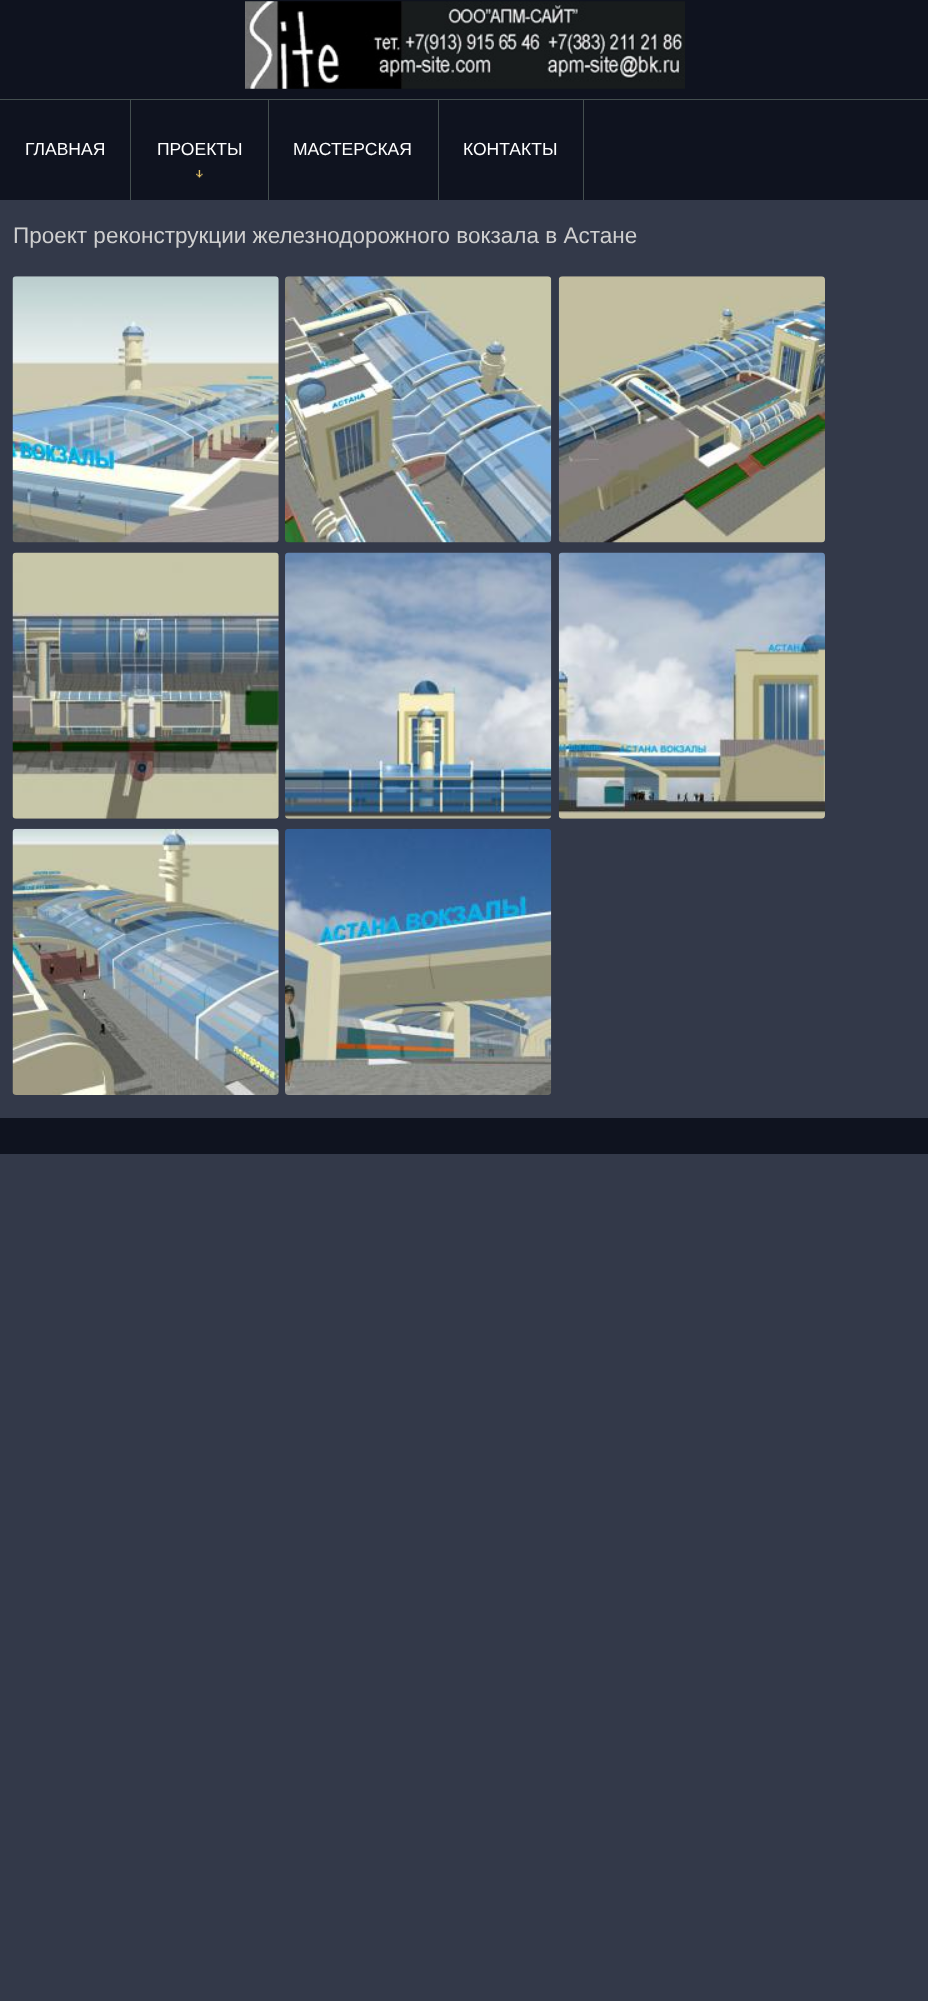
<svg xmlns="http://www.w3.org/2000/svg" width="928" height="2001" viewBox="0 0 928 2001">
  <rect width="100%" height="100%" fill="#333949"/>
  <path d="M0 0h928v200H0z" fill="#0f131f"/>
  <path d="M0 99h928v1H0z" fill="#444f4f"/>
  <image x="245" y="1" width="440" height="88" href="img/1.png"/>
  <path d="M130 100h1v100H130z" fill="#444f4f"/>
  <image x="196" y="170" width="7" height="8" href="img/2.png"/>
  <path d="M268 100h1v100H268z" fill="#444f4f"/>
  <path d="M583 100h1v100H583z" fill="#444f4f"/>
  <path d="M438 100h1v100H438z" fill="#444f4f"/>
  <image x="12" y="276" width="267" height="267" href="img/3.png"/>
  <image x="285" y="276" width="267" height="267" href="img/4.png"/>
  <image x="558" y="276" width="267" height="267" href="img/5.png"/>
  <image x="12" y="552" width="267" height="267" href="img/6.png"/>
  <image x="285" y="552" width="267" height="267" href="img/7.png"/>
  <image x="558" y="552" width="267" height="267" href="img/8.png"/>
  <image x="12" y="828" width="267" height="267" href="img/9.png"/>
  <image x="285" y="828" width="267" height="267" href="img/10.png"/>
  <path d="M0 1118h928v36H0z" fill="#0f131f"/>
  <g font-family="Liberation Sans" font-size="17.5" fill="#fff">
    <text x="25" y="155">ГЛАВНАЯ</text>
    <text x="157" y="155">ПРОЕКТЫ</text>
    <text x="293" y="155">МАСТЕРСКАЯ</text>
    <text x="463" y="155">КОНТАКТЫ</text>
  </g>
  <text x="13" y="243" font-family="Liberation Sans" font-size="22.5" fill="#cfcfcf">Проект реконструкции железнодорожного вокзала в Астане</text>
</svg>
